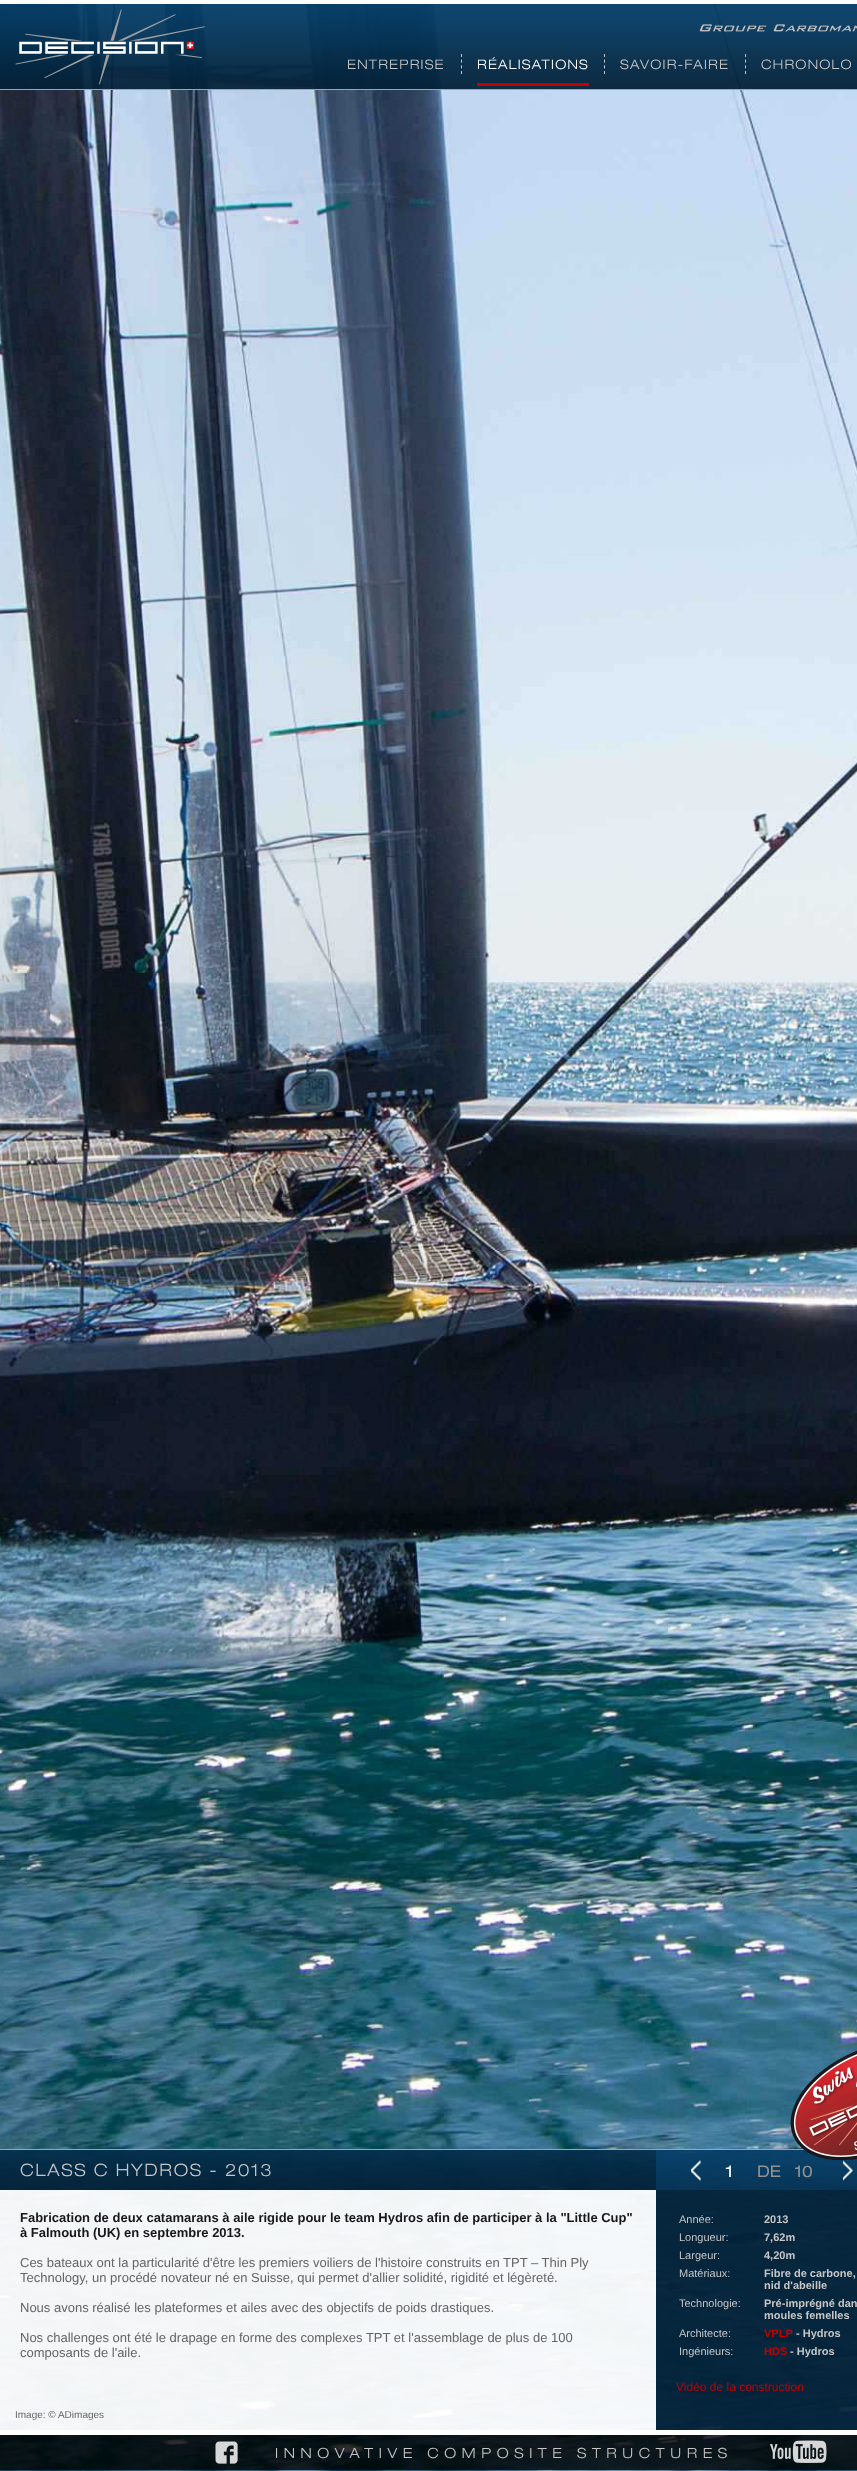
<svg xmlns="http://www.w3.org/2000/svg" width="857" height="2471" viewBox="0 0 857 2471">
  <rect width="100%" height="100%" fill="#fff"/>
  <image x="0" y="4" width="857" height="2467" href="img/1.png"/>
  <image x="0" y="4" width="857" height="85" href="img/2.png"/>
  <path d="M0 89h857v1H0z" fill="#a4a4a4"/>
  <image x="15" y="9" width="190" height="76" href="img/3.png"/>
  <image x="699" y="24" width="158" height="8" href="img/4.png"/>
  <path d="M461.5 54V74" fill="none" stroke="#c6c6c6" stroke-dasharray="3 2.67"/>
  <path d="M604.5 54V74" fill="none" stroke="#c6c6c6" stroke-dasharray="3 2.67"/>
  <path d="M477 83h112v3H477z" fill="#c30000"/>
  <path d="M745.5 54V74" fill="none" stroke="#c6c6c6" stroke-dasharray="3 2.67"/>
  <path d="M0 2149h805v1H0z" fill="#a4a4a4"/>
  <image x="656" y="2150" width="201" height="40" href="img/7.png"/>
  <image x="843" y="2160" width="10" height="21" href="img/9.png"/>
  <image x="790" y="2050" width="67" height="111" href="img/5.png"/>
  <image x="0" y="2150" width="656" height="40" href="img/6.png"/>
  <image x="691" y="2160" width="10" height="21" href="img/8.png"/>
  <path d="M0 2190h656v240H0z" fill="#fffffff2"/>
  <path d="M656 2190h201v240H656z" fill="#032239f2"/>
  <path d="M0 2435h857v35H0z" fill="#000000cc"/>
  <path d="M0 2430h857v5H0z" fill="#fff"/>
  <image x="215" y="2441" width="23" height="23" href="img/10.png"/>
  <image x="770" y="2440" width="57" height="23" href="img/11.png"/>
  <text x="347" y="69" font-family="Helvetica Neue" font-size="13" font-weight="300" letter-spacing="1.25" fill="#c6c6c6">ENTREPRISE</text>
  <text x="477" y="69" font-family="Helvetica Neue" font-size="13" font-weight="300" letter-spacing="1.25" fill="#fff">RÉALISATIONS</text>
  <g font-family="Helvetica Neue" font-size="13" font-weight="300" letter-spacing="1.25" fill="#c6c6c6">
    <text x="620" y="69">SAVOIR-FAIRE</text>
    <text x="761" y="69">CHRONOLO</text>
  </g>
  <text x="20" y="2176" font-family="Helvetica Neue" font-size="17" font-weight="300" letter-spacing="1.7" fill="#c6c6c6">CLASS C HYDROS - 2013</text>
  <text x="726" y="2177" font-family="Helvetica Neue" font-size="16" fill="#fff">1</text>
  <g font-family="Helvetica Neue" font-size="16" fill="#919191">
    <text x="757" y="2177">DE</text>
    <text x="795" y="2177">10</text>
  </g>
  <g font-family="Liberation Sans" font-size="13" font-weight="bold" fill="#1a171b">
    <text x="20" y="2222">Fabrication de deux catamarans à aile rigide pour le team Hydros afin de participer à la "Little Cup"</text>
    <text x="20" y="2237">à Falmouth (UK) en septembre 2013.</text>
  </g>
  <g font-family="Liberation Sans" font-size="13" fill="#646464">
    <text x="20" y="2267">Ces bateaux ont la particularité d'être les premiers voiliers de l'histoire construits en TPT – Thin Ply</text>
    <text x="20" y="2282">Technology, un procédé novateur né en Suisse, qui permet d'allier solidité, rigidité et légèreté.</text>
    <text x="20" y="2312">Nous avons réalisé les plateformes et ailes avec des objectifs de poids drastiques.</text>
    <text x="20" y="2342">Nos challenges ont été le drapage en forme des complexes TPT et l'assemblage de plus de 100</text>
    <text x="20" y="2357">composants de l'aile.</text>
  </g>
  <text x="15" y="2418" font-family="Liberation Sans" font-size="10" fill="#646464">Image: © ADimages</text>
  <text x="679" y="2223" font-family="Liberation Sans" font-size="11" fill="#c6c6c6">Année:</text>
  <text x="764" y="2223" font-family="Liberation Sans" font-size="11" font-weight="bold" fill="#c6c6c6">2013</text>
  <text x="679" y="2241" font-family="Liberation Sans" font-size="11" fill="#c6c6c6">Longueur:</text>
  <text x="764" y="2241" font-family="Liberation Sans" font-size="11" font-weight="bold" fill="#c6c6c6">7,62m</text>
  <text x="679" y="2259" font-family="Liberation Sans" font-size="11" fill="#c6c6c6">Largeur:</text>
  <text x="764" y="2259" font-family="Liberation Sans" font-size="11" font-weight="bold" fill="#c6c6c6">4,20m</text>
  <text x="679" y="2277" font-family="Liberation Sans" font-size="11" fill="#c6c6c6">Matériaux:</text>
  <g font-family="Liberation Sans" font-size="11" font-weight="bold" fill="#c6c6c6">
    <text x="764" y="2277">Fibre de carbone,</text>
    <text x="764" y="2289">nid d'abeille</text>
  </g>
  <text x="679" y="2307" font-family="Liberation Sans" font-size="11" fill="#c6c6c6">Technologie:</text>
  <g font-family="Liberation Sans" font-size="11" font-weight="bold" fill="#c6c6c6">
    <text x="764" y="2307">Pré-imprégné dan</text>
    <text x="764" y="2319">moules femelles</text>
  </g>
  <text x="679" y="2337" font-family="Liberation Sans" font-size="11" fill="#c6c6c6">Architecte:</text>
  <text x="764" y="2337" font-family="Liberation Sans" font-size="11" font-weight="bold" fill="#c30000">VPLP</text>
  <text x="796" y="2337" font-family="Liberation Sans" font-size="11" font-weight="bold" fill="#c6c6c6">- Hydros</text>
  <text x="679" y="2355" font-family="Liberation Sans" font-size="11" fill="#c6c6c6">Ingénieurs:</text>
  <text x="764" y="2355" font-family="Liberation Sans" font-size="11" font-weight="bold" fill="#c30000">HDS</text>
  <text x="790" y="2355" font-family="Liberation Sans" font-size="11" font-weight="bold" fill="#c6c6c6">- Hydros</text>
  <text x="676" y="2391" font-family="Liberation Sans" font-size="12" fill="#c30000">Vidéo de la construction</text>
  <text x="275" y="2458" font-family="Helvetica Neue" font-size="14" font-weight="300" letter-spacing="5.6" fill="#c6c6c6">INNOVATIVE COMPOSITE STRUCTURES</text>
</svg>
